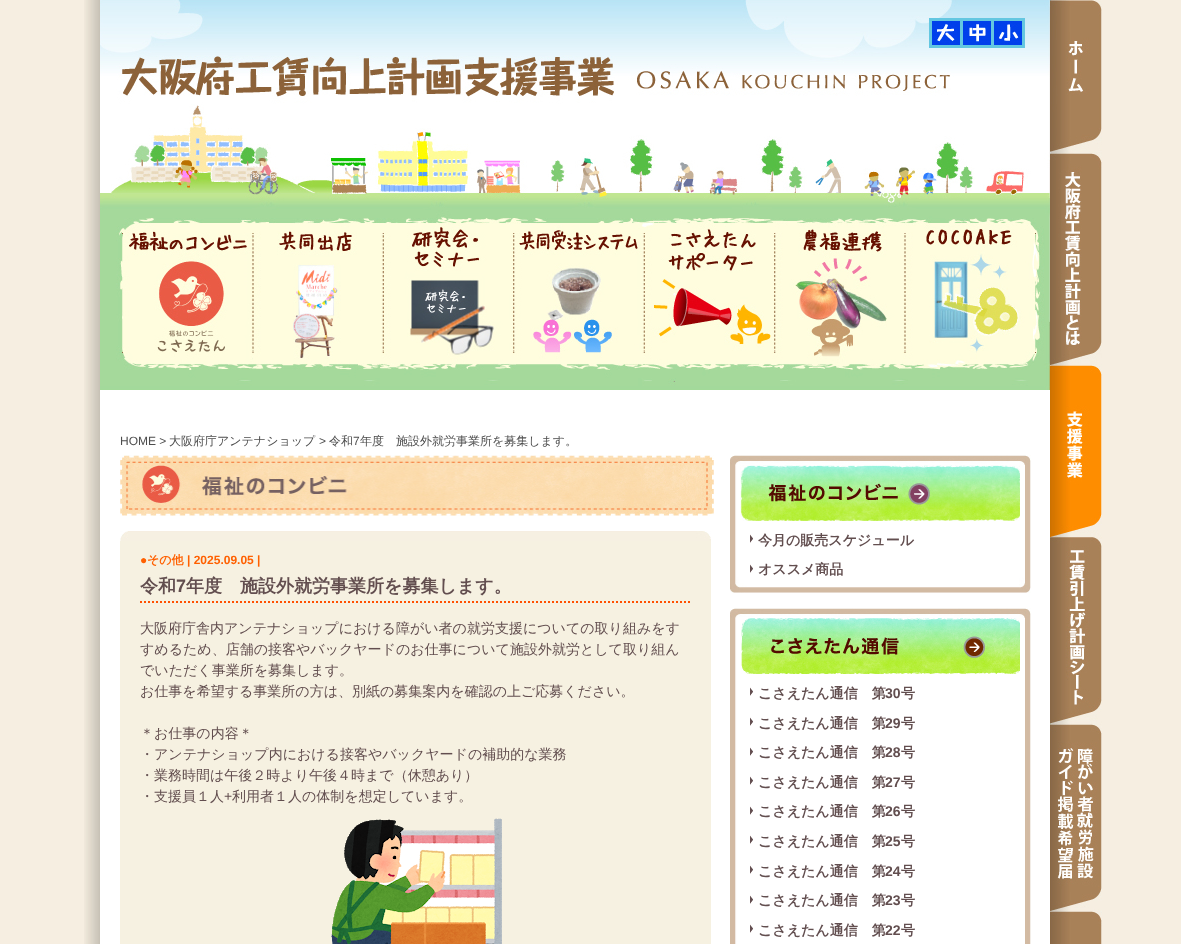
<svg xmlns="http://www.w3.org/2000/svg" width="1181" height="944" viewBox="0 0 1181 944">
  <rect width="100%" height="100%" fill="#f6eee1"/>
  <image x="84" y="0" width="966" height="944" href="img/1.png"/>
  <image x="100" y="0" width="950" height="210" href="img/2.png"/>
  <path d="M929 18h96v30H929z" fill="#64c7e1"/>
  <image x="932" y="21" width="28" height="24" href="img/3.png"/>
  <image x="963" y="21" width="28" height="24" href="img/4.png"/>
  <image x="994" y="21" width="28" height="24" href="img/5.png"/>
  <image x="121" y="59" width="461" height="35" href="img/6.png"/>
  <image x="1050" y="0" width="52" height="153" href="img/7.png"/>
  <image x="1050" y="153" width="52" height="212" href="img/8.png"/>
  <image x="1050" y="365" width="52" height="172" href="img/9.png"/>
  <image x="1050" y="537" width="52" height="187" href="img/10.png"/>
  <image x="1050" y="724" width="52" height="187" href="img/11.png"/>
  <image x="1050" y="911" width="52" height="33" href="img/12.png"/>
  <image x="100" y="210" width="950" height="180" href="img/13.png"/>
  <image x="122" y="223" width="131" height="141" href="img/14.png"/>
  <image x="253" y="224" width="130" height="139" href="img/15.png"/>
  <image x="383" y="224" width="131" height="139" href="img/16.png"/>
  <image x="514" y="224" width="130" height="140" href="img/17.png"/>
  <image x="644" y="223" width="131" height="141" href="img/18.png"/>
  <image x="775" y="229" width="130" height="135" href="img/19.png"/>
  <image x="905" y="228" width="130" height="136" href="img/20.png"/>
  <image x="120" y="455" width="594" height="61" href="img/21.png"/>
  <path d="M120 541h591v403H120z" fill="#f6f1e1"/>
  <image x="120" y="531" width="591" height="10" href="img/22.png"/>
  <image x="140" y="601" width="550" height="2" href="img/23.png"/>
  <image x="331" y="818" width="171" height="126" href="img/24.png"/>
  <image x="730" y="455" width="301" height="10" href="img/25.png"/>
  <image x="730" y="465" width="301" height="128" href="img/26.png"/>
  <image x="740" y="465" width="280" height="56" href="img/27.png"/>
  <image x="750" y="534" width="3" height="9" href="img/28.png"/>
  <image x="750" y="564" width="3" height="9" href="img/28.png"/>
  <image x="730" y="608" width="301" height="10" href="img/25.png"/>
  <image x="730" y="618" width="301" height="326" href="img/29.png"/>
  <image x="741" y="618" width="279" height="56" href="img/30.png"/>
  <image x="750" y="687" width="3" height="9" href="img/28.png"/>
  <image x="750" y="717" width="3" height="9" href="img/28.png"/>
  <image x="750" y="747" width="3" height="9" href="img/28.png"/>
  <image x="750" y="776" width="3" height="9" href="img/28.png"/>
  <image x="750" y="806" width="3" height="9" href="img/28.png"/>
  <image x="750" y="835" width="3" height="9" href="img/28.png"/>
  <image x="750" y="865" width="3" height="9" href="img/28.png"/>
  <image x="750" y="895" width="3" height="9" href="img/28.png"/>
  <image x="750" y="924" width="3" height="9" href="img/28.png"/>
  <text x="120" y="445" font-family="Liberation Sans" font-size="12" fill="#4d4d4d">HOME &gt;</text>
  <text x="169" y="445" font-family="WenQuanYi Zen Hei" font-size="12" font-weight="500" fill="#4d4d4d">大阪府庁アンテナショップ</text>
  <text x="319" y="445" font-family="Liberation Sans" font-size="12" fill="#4d4d4d">&gt;</text>
  <text x="329" y="445" font-family="WenQuanYi Zen Hei" font-size="12" font-weight="500" fill="#4d4d4d">令和</text>
  <text x="353" y="445" font-family="Liberation Sans" font-size="12" fill="#4d4d4d">7</text>
  <text x="360" y="445" font-family="WenQuanYi Zen Hei" font-size="12" font-weight="500" fill="#4d4d4d">年度　施設外就労事業所を募集します。</text>
  <text x="140" y="564" font-family="Liberation Sans" font-size="12" font-weight="bold" fill="#ff6000">●</text>
  <text x="147" y="564" font-family="WenQuanYi Zen Hei" font-size="12" font-weight="bold" fill="#ff6000">その他</text>
  <text x="187" y="564" font-family="Liberation Sans" font-size="12" font-weight="bold" fill="#ff6000">| 2025.09.05 |</text>
  <text x="140" y="592" font-family="WenQuanYi Zen Hei" font-size="18" font-weight="bold" fill="#624e4f">令和</text>
  <text x="176" y="592" font-family="Liberation Sans" font-size="18" font-weight="bold" fill="#624e4f">7</text>
  <text x="186" y="592" font-family="WenQuanYi Zen Hei" font-size="18" font-weight="bold" fill="#624e4f">年度　施設外就労事業所を募集します。</text>
  <g font-family="WenQuanYi Zen Hei" font-size="14" font-weight="500" fill="#624e4f">
    <text x="140" y="633">大阪府庁舎内アンテナショップにおける障がい者の就労支援についての取り組みをす</text>
    <text x="140" y="654">すめるため、店舗の接客やバックヤードのお仕事について施設外就労として取り組ん</text>
    <text x="140" y="675">でいただく事業所を募集します。</text>
    <text x="140" y="696">お仕事を希望する事業所の方は、別紙の募集案内を確認の上ご応募ください。</text>
    <text x="140" y="738">＊お仕事の内容＊</text>
    <text x="140" y="759">・アンテナショップ内における接客やバックヤードの補助的な業務</text>
    <text x="140" y="780">・業務時間は午後２時より午後４時まで（休憩あり）</text>
    <text x="140" y="801">・支援員１人</text>
  </g>
  <text x="224" y="801" font-family="Liberation Sans" font-size="14" fill="#624e4f">+</text>
  <text x="232" y="801" font-family="WenQuanYi Zen Hei" font-size="14" font-weight="500" fill="#624e4f">利用者１人の体制を想定しています。</text>
  <g font-family="WenQuanYi Zen Hei" font-size="14" font-weight="bold" fill="#624e4f">
    <text x="758" y="545">今月の販売スケジュール</text>
    <text x="758" y="574">オススメ商品</text>
    <text x="758" y="698">こさえたん通信　第</text>
  </g>
  <text x="885" y="698" font-family="Liberation Sans" font-size="14" font-weight="bold" fill="#624e4f">30</text>
  <g font-family="WenQuanYi Zen Hei" font-size="14" font-weight="bold" fill="#624e4f">
    <text x="901" y="698">号</text>
    <text x="758" y="728">こさえたん通信　第</text>
  </g>
  <text x="885" y="728" font-family="Liberation Sans" font-size="14" font-weight="bold" fill="#624e4f">29</text>
  <g font-family="WenQuanYi Zen Hei" font-size="14" font-weight="bold" fill="#624e4f">
    <text x="901" y="728">号</text>
    <text x="758" y="757">こさえたん通信　第</text>
  </g>
  <text x="885" y="757" font-family="Liberation Sans" font-size="14" font-weight="bold" fill="#624e4f">28</text>
  <g font-family="WenQuanYi Zen Hei" font-size="14" font-weight="bold" fill="#624e4f">
    <text x="901" y="757">号</text>
    <text x="758" y="787">こさえたん通信　第</text>
  </g>
  <text x="885" y="787" font-family="Liberation Sans" font-size="14" font-weight="bold" fill="#624e4f">27</text>
  <g font-family="WenQuanYi Zen Hei" font-size="14" font-weight="bold" fill="#624e4f">
    <text x="901" y="787">号</text>
    <text x="758" y="816">こさえたん通信　第</text>
  </g>
  <text x="885" y="816" font-family="Liberation Sans" font-size="14" font-weight="bold" fill="#624e4f">26</text>
  <g font-family="WenQuanYi Zen Hei" font-size="14" font-weight="bold" fill="#624e4f">
    <text x="901" y="816">号</text>
    <text x="758" y="846">こさえたん通信　第</text>
  </g>
  <text x="885" y="846" font-family="Liberation Sans" font-size="14" font-weight="bold" fill="#624e4f">25</text>
  <g font-family="WenQuanYi Zen Hei" font-size="14" font-weight="bold" fill="#624e4f">
    <text x="901" y="846">号</text>
    <text x="758" y="876">こさえたん通信　第</text>
  </g>
  <text x="885" y="876" font-family="Liberation Sans" font-size="14" font-weight="bold" fill="#624e4f">24</text>
  <g font-family="WenQuanYi Zen Hei" font-size="14" font-weight="bold" fill="#624e4f">
    <text x="901" y="876">号</text>
    <text x="758" y="905">こさえたん通信　第</text>
  </g>
  <text x="885" y="905" font-family="Liberation Sans" font-size="14" font-weight="bold" fill="#624e4f">23</text>
  <g font-family="WenQuanYi Zen Hei" font-size="14" font-weight="bold" fill="#624e4f">
    <text x="901" y="905">号</text>
    <text x="758" y="935">こさえたん通信　第</text>
  </g>
  <text x="885" y="935" font-family="Liberation Sans" font-size="14" font-weight="bold" fill="#624e4f">22</text>
  <text x="901" y="935" font-family="WenQuanYi Zen Hei" font-size="14" font-weight="bold" fill="#624e4f">号</text>
</svg>
